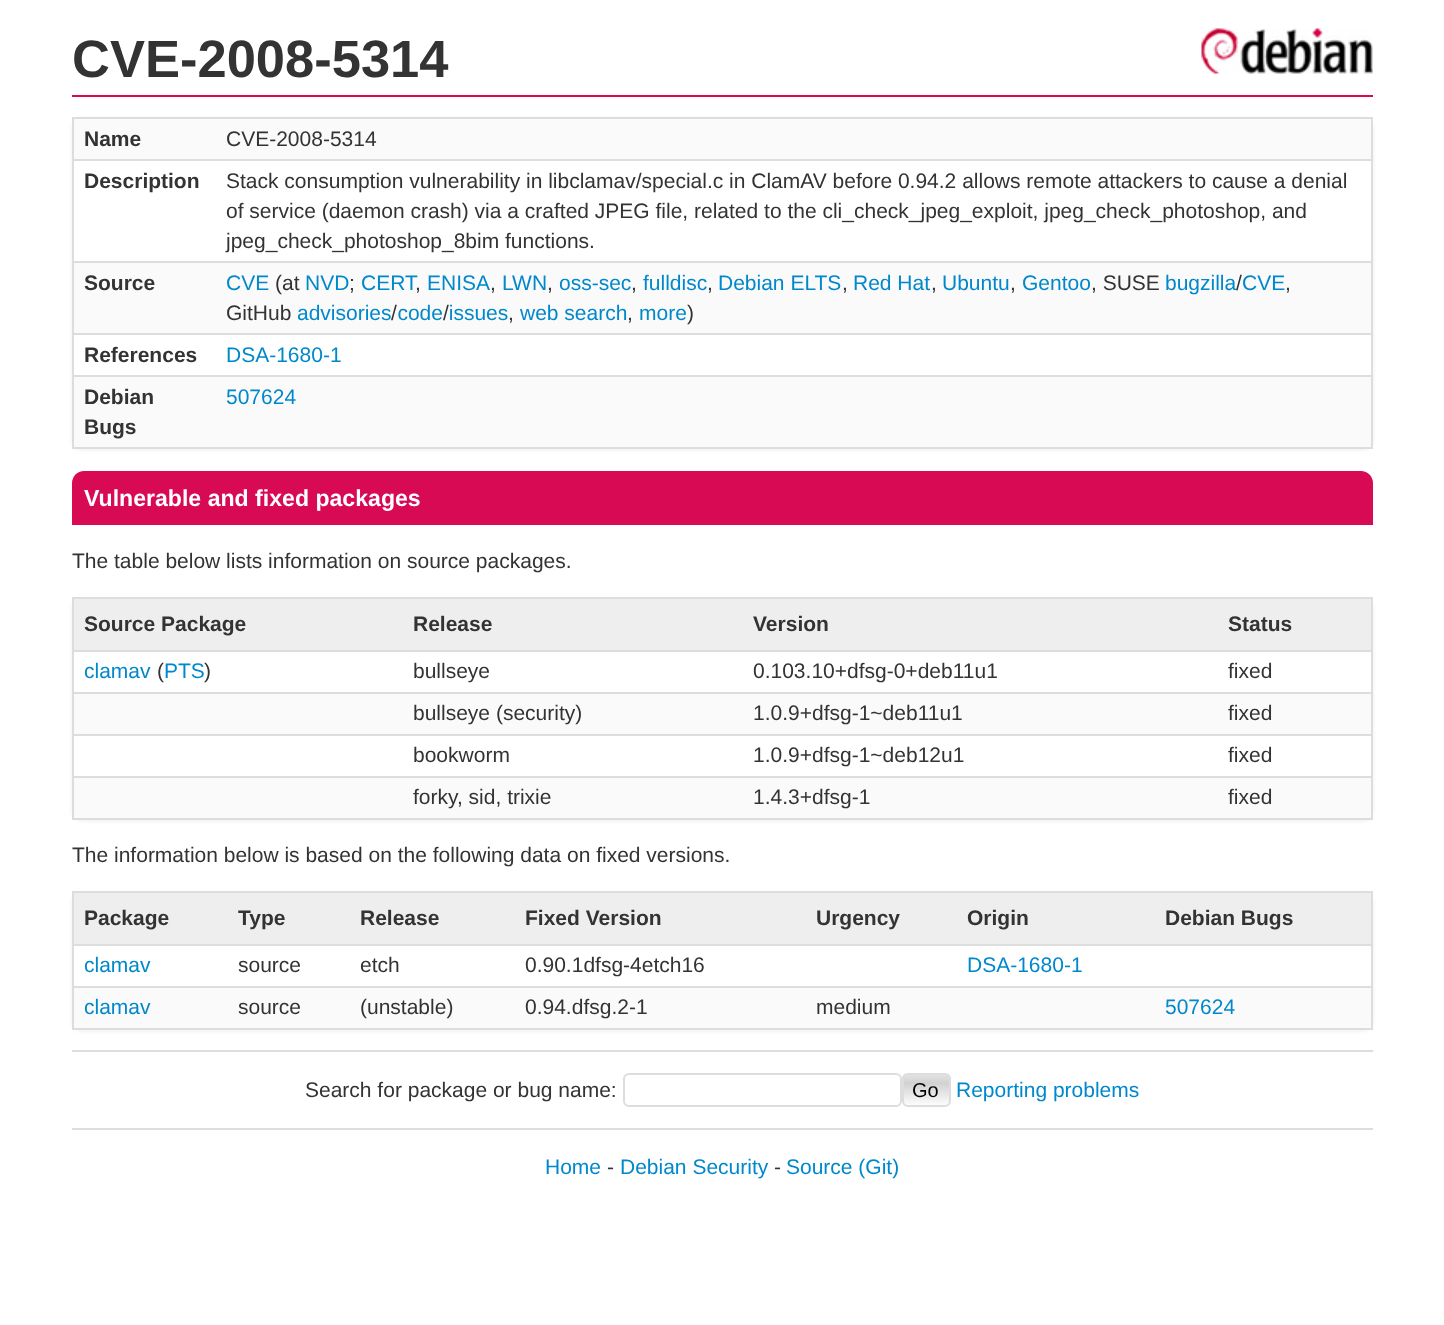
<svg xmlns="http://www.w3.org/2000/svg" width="1444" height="1325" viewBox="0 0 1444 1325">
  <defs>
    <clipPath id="clip1"><path d="M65 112H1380V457H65ZM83 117H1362C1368 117 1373 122 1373 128V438C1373 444 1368 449 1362 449H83C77 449 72 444 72 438V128C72 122 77 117 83 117Z" clip-rule="evenodd"/></clipPath>
    <clipPath id="clip2"><path d="M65 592H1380V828H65ZM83 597H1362C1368 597 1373 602 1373 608V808C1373 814 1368 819 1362 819H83C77 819 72 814 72 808V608C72 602 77 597 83 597Z" clip-rule="evenodd"/></clipPath>
    <clipPath id="clip3"><path d="M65 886H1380V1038H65ZM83 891H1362C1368 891 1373 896 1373 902V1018C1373 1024 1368 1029 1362 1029H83C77 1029 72 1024 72 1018V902C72 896 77 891 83 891Z" clip-rule="evenodd"/></clipPath>
    <clipPath id="clip4"><rect x="902" y="1073" width="49" height="34" rx="6"/></clipPath>
    <linearGradient id="g1" gradientUnits="userSpaceOnUse" x1="926" y1="1074" x2="926" y2="1106"><stop offset="0" stop-color="#e2e2e2"/><stop offset="0.15" stop-color="#dbdbdb"/><stop offset="0.28" stop-color="#d1d1d1"/><stop offset="1" stop-color="#fefefe"/></linearGradient>
  </defs>
  <rect width="100%" height="100%" fill="#fff"/>
  <image x="1201" y="28" width="172" height="46" href="img/1.png"/>
  <path d="M72 95h1301v2H72z" fill="#d70a53"/>
  <g clip-path="url(#clip1)">
    <rect x="72" y="119" width="1301" height="331" rx="11" fill="#eee" filter="blur(2px)"/>
  </g>
  <path d="M72 117h1301v2H72z" fill="#ddd"/>
  <path d="M1371 117h2v332H1371z" fill="#ddd"/>
  <path d="M72 447h1301v2H72z" fill="#ddd"/>
  <path d="M72 117h2v332H72z" fill="#ddd"/>
  <path d="M74 119h1297v40H74z" fill="#fafafa"/>
  <path d="M72 159h1301v2H72z" fill="#ddd"/>
  <path d="M72 261h1301v2H72z" fill="#ddd"/>
  <path d="M74 263h1297v70H74z" fill="#fafafa"/>
  <path d="M72 333h1301v2H72z" fill="#ddd"/>
  <path d="M72 375h1301v2H72z" fill="#ddd"/>
  <path d="M74 377h1297v70H74z" fill="#fafafa"/>
  <path d="M84 471H1361C1367.5 471 1373 476.5 1373 483V525H72V483C72 476.5 77.5 471 84 471Z" fill="#d70a53"/>
  <g clip-path="url(#clip2)">
    <rect x="72" y="599" width="1301" height="222" rx="11" fill="#eee" filter="blur(2px)"/>
  </g>
  <path d="M72 597h1301v2H72z" fill="#ddd"/>
  <path d="M1371 597h2v222H1371z" fill="#ddd"/>
  <path d="M72 818h1301v2H72z" fill="#ddd"/>
  <path d="M72 597h2v222H72z" fill="#ddd"/>
  <path d="M74 599h1297v51H74z" fill="#eee"/>
  <path d="M72 650h1301v2H72z" fill="#ddd"/>
  <path d="M72 692h1301v2H72z" fill="#ddd"/>
  <path d="M74 694h1297v40H74z" fill="#fafafa"/>
  <path d="M72 734h1301v2H72z" fill="#ddd"/>
  <path d="M72 776h1301v2H72z" fill="#ddd"/>
  <path d="M74 778h1297v40H74z" fill="#fafafa"/>
  <g clip-path="url(#clip3)">
    <rect x="72" y="893" width="1301" height="138" rx="11" fill="#eee" filter="blur(2px)"/>
  </g>
  <path d="M72 891h1301v2H72z" fill="#ddd"/>
  <path d="M1371 891h2v138H1371z" fill="#ddd"/>
  <path d="M72 1028h1301v2H72z" fill="#ddd"/>
  <path d="M72 891h2v138H72z" fill="#ddd"/>
  <path d="M74 893h1297v51H74z" fill="#eee"/>
  <path d="M72 944h1301v2H72z" fill="#ddd"/>
  <path d="M72 986h1301v2H72z" fill="#ddd"/>
  <path d="M74 988h1297v40H74z" fill="#fafafa"/>
  <path d="M72 1050h1301v2H72z" fill="#ddd"/>
  <path d="M72 1128h1301v2H72z" fill="#ddd"/>
  <rect x="624" y="1074" width="277" height="32" rx="5" fill="none" stroke="#ddd" stroke-width="2"/>
  <g clip-path="url(#clip4)">
    <path d="M902 1074h49v32H902z" fill="url(#g1)"/>
  </g>
  <rect x="903" y="1074" width="47" height="32" rx="5" fill="none" stroke="#ddd" stroke-width="2"/>
  <text x="72" y="77" font-family="Liberation Sans" font-size="52.5" font-weight="bold" fill="#333">CVE-2008-5314</text>
  <text x="84" y="146" font-family="Liberation Sans" font-size="21" font-weight="bold" fill="#333">Name</text>
  <text x="226" y="146" font-family="Liberation Sans" font-size="21" fill="#333">CVE-2008-5314</text>
  <text x="84" y="188" font-family="Liberation Sans" font-size="21" font-weight="bold" fill="#333">Description</text>
  <g font-family="Liberation Sans" font-size="21" fill="#333">
    <text x="226" y="188">Stack consumption vulnerability in libclamav/special.c in ClamAV before 0.94.2 allows remote attackers to cause a denial</text>
    <text x="226" y="218">of service (daemon crash) via a crafted JPEG file, related to the cli_check_jpeg_exploit, jpeg_check_photoshop, and</text>
    <text x="226" y="248">jpeg_check_photoshop_8bim functions.</text>
  </g>
  <text x="84" y="290" font-family="Liberation Sans" font-size="21" font-weight="bold" fill="#333">Source</text>
  <text x="275" y="290" font-family="Liberation Sans" font-size="21" fill="#333">(at</text>
  <g font-family="Liberation Sans" font-size="21" fill="#08c">
    <text x="643" y="290">fulldisc</text>
    <text x="718" y="290">Debian ELTS</text>
    <text x="853" y="290">Red Hat</text>
    <text x="942" y="290">Ubuntu</text>
    <text x="1165" y="290">bugzilla CVE</text>
    <text x="226" y="290">CVE</text>
    <text x="305" y="290">NVD</text>
  </g>
  <text x="349" y="290" font-family="Liberation Sans" font-size="21" fill="#333">;</text>
  <text x="361" y="290" font-family="Liberation Sans" font-size="21" fill="#08c">CERT</text>
  <text x="415" y="290" font-family="Liberation Sans" font-size="21" fill="#333">,</text>
  <text x="427" y="290" font-family="Liberation Sans" font-size="21" fill="#08c">ENISA</text>
  <text x="490" y="290" font-family="Liberation Sans" font-size="21" fill="#333">,</text>
  <text x="502" y="290" font-family="Liberation Sans" font-size="21" fill="#08c">LWN</text>
  <text x="547" y="290" font-family="Liberation Sans" font-size="21" fill="#333">,</text>
  <text x="559" y="290" font-family="Liberation Sans" font-size="21" fill="#08c">oss-sec</text>
  <g font-family="Liberation Sans" font-size="21" fill="#333">
    <text x="631" y="290">,</text>
    <text x="707" y="290">,</text>
    <text x="842" y="290">,</text>
    <text x="931" y="290">,</text>
    <text x="1010" y="290">,</text>
  </g>
  <text x="1022" y="290" font-family="Liberation Sans" font-size="21" fill="#08c">Gentoo</text>
  <g font-family="Liberation Sans" font-size="21" fill="#333">
    <text x="1091" y="290">, SUSE</text>
    <text x="1236" y="290">/</text>
    <text x="1285" y="290">,</text>
    <text x="226" y="320">GitHub</text>
  </g>
  <text x="297" y="320" font-family="Liberation Sans" font-size="21" fill="#08c">advisories code issues</text>
  <g font-family="Liberation Sans" font-size="21" fill="#333">
    <text x="391" y="320">/</text>
    <text x="443" y="320">/</text>
    <text x="508" y="320">,</text>
  </g>
  <text x="520" y="320" font-family="Liberation Sans" font-size="21" fill="#08c">web search</text>
  <text x="627" y="320" font-family="Liberation Sans" font-size="21" fill="#333">,</text>
  <text x="639" y="320" font-family="Liberation Sans" font-size="21" fill="#08c">more</text>
  <text x="687" y="320" font-family="Liberation Sans" font-size="21" fill="#333">)</text>
  <text x="84" y="362" font-family="Liberation Sans" font-size="21" font-weight="bold" fill="#333">References</text>
  <text x="226" y="362" font-family="Liberation Sans" font-size="21" fill="#08c">DSA-1680-1</text>
  <g font-family="Liberation Sans" font-size="21" font-weight="bold" fill="#333">
    <text x="84" y="404">Debian</text>
    <text x="84" y="434">Bugs</text>
  </g>
  <text x="226" y="404" font-family="Liberation Sans" font-size="21" fill="#08c">507624</text>
  <text x="84" y="506" font-family="Liberation Sans" font-size="23.1" font-weight="bold" fill="#fff">Vulnerable and fixed packages</text>
  <text x="72" y="568" font-family="Liberation Sans" font-size="21" fill="#333">The table below lists information on source packages.</text>
  <g font-family="Liberation Sans" font-size="21" font-weight="bold" fill="#333">
    <text x="84" y="631">Source Package</text>
    <text x="413" y="631">Release</text>
    <text x="753" y="631">Version</text>
    <text x="1228" y="631">Status</text>
  </g>
  <text x="84" y="678" font-family="Liberation Sans" font-size="21" fill="#08c">clamav</text>
  <text x="157" y="678" font-family="Liberation Sans" font-size="21" fill="#333">(</text>
  <text x="164" y="678" font-family="Liberation Sans" font-size="21" fill="#08c">PTS</text>
  <g font-family="Liberation Sans" font-size="21" fill="#333">
    <text x="204" y="678">)</text>
    <text x="413" y="678">bullseye</text>
    <text x="753" y="678">0.103.10+dfsg-0+deb11u1</text>
    <text x="1228" y="678">fixed</text>
    <text x="413" y="720">bullseye (security)</text>
    <text x="753" y="720">1.0.9+dfsg-1~deb11u1</text>
    <text x="1228" y="720">fixed</text>
    <text x="413" y="762">bookworm</text>
    <text x="753" y="762">1.0.9+dfsg-1~deb12u1</text>
    <text x="1228" y="762">fixed</text>
    <text x="413" y="804">forky, sid, trixie</text>
    <text x="753" y="804">1.4.3+dfsg-1</text>
    <text x="1228" y="804">fixed</text>
    <text x="72" y="862">The information below is based on the following data on fixed versions.</text>
  </g>
  <g font-family="Liberation Sans" font-size="21" font-weight="bold" fill="#333">
    <text x="84" y="925">Package</text>
    <text x="238" y="925">Type</text>
    <text x="360" y="925">Release</text>
    <text x="525" y="925">Fixed Version</text>
    <text x="816" y="925">Urgency</text>
    <text x="967" y="925">Origin</text>
    <text x="1165" y="925">Debian Bugs</text>
  </g>
  <text x="84" y="972" font-family="Liberation Sans" font-size="21" fill="#08c">clamav</text>
  <g font-family="Liberation Sans" font-size="21" fill="#333">
    <text x="238" y="972">source</text>
    <text x="360" y="972">etch</text>
    <text x="525" y="972">0.90.1dfsg-4etch16</text>
  </g>
  <g font-family="Liberation Sans" font-size="21" fill="#08c">
    <text x="967" y="972">DSA-1680-1</text>
    <text x="84" y="1014">clamav</text>
  </g>
  <g font-family="Liberation Sans" font-size="21" fill="#333">
    <text x="238" y="1014">source</text>
    <text x="360" y="1014">(unstable)</text>
    <text x="525" y="1014">0.94.dfsg.2-1</text>
    <text x="816" y="1014">medium</text>
  </g>
  <text x="1165" y="1014" font-family="Liberation Sans" font-size="21" fill="#08c">507624</text>
  <text x="305" y="1097" font-family="Liberation Sans" font-size="21" fill="#333">Search for package or bug name:</text>
  <text x="912" y="1097" font-family="Liberation Sans" font-size="20" fill="#000">Go</text>
  <g font-family="Liberation Sans" font-size="21" fill="#08c">
    <text x="956" y="1097">Reporting problems</text>
    <text x="545" y="1174">Home</text>
  </g>
  <text x="607" y="1174" font-family="Liberation Sans" font-size="21" fill="#333">-</text>
  <text x="620" y="1174" font-family="Liberation Sans" font-size="21" fill="#08c">Debian Security</text>
  <text x="774" y="1174" font-family="Liberation Sans" font-size="21" fill="#333">-</text>
  <text x="786" y="1174" font-family="Liberation Sans" font-size="21" fill="#08c">Source (Git)</text>
</svg>
